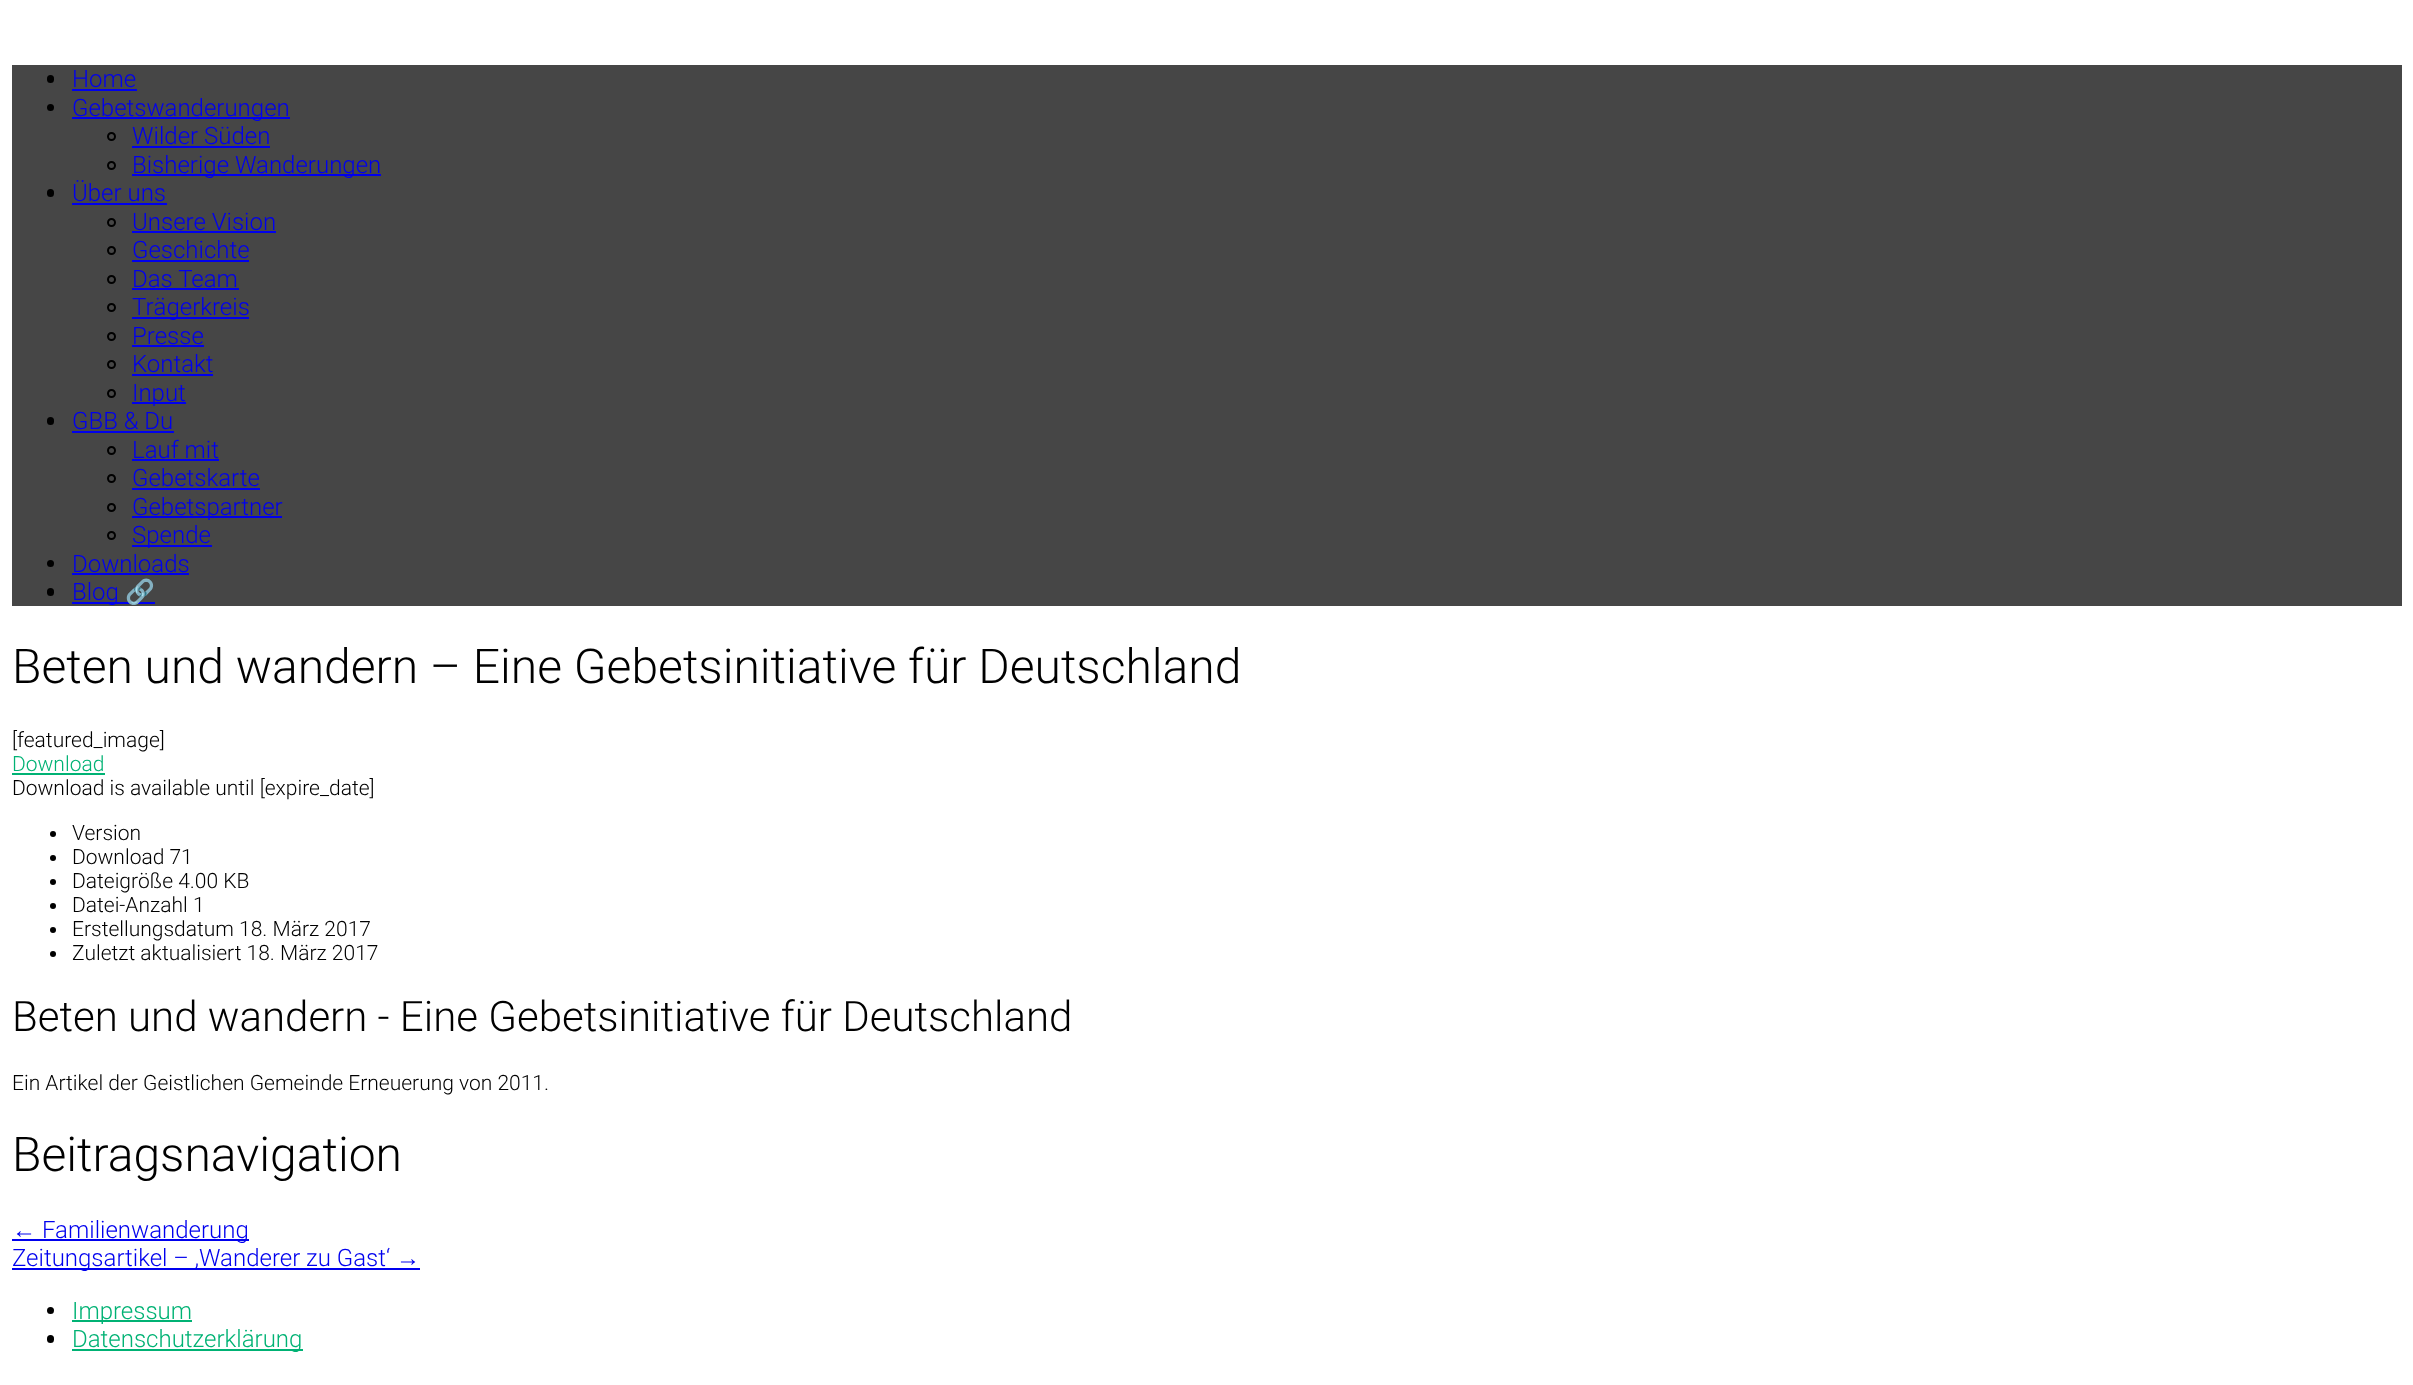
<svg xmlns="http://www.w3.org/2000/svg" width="2413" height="1385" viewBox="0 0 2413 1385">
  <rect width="100%" height="100%" fill="#fff"/>
  <path d="M12 65h2390v541H12z" fill="#464646"/>
  <rect x="47" y="75" width="7" height="8" rx="3.5" fill="#000"/>
  <path d="M72 89h65v2H72z" fill="#00e"/>
  <circle cx="50.5" cy="107.5" r="3.5" fill="#000"/>
  <path d="M72 117h218v2H72z" fill="#00e"/>
  <circle cx="111.5" cy="136.5" r="3.5" fill="none" stroke="#000" stroke-width="2"/>
  <path d="M132 146h138v2H132z" fill="#00e"/>
  <circle cx="111.5" cy="165.5" r="3.5" fill="none" stroke="#000" stroke-width="2"/>
  <path d="M132 174h249v2H132z" fill="#00e"/>
  <rect x="47" y="189" width="7" height="8" rx="3.5" fill="#000"/>
  <path d="M72 203h95v2H72z" fill="#00e"/>
  <circle cx="111.5" cy="222.5" r="3.5" fill="none" stroke="#000" stroke-width="2"/>
  <path d="M132 231h144v2H132z" fill="#00e"/>
  <circle cx="111.5" cy="250.5" r="3.5" fill="none" stroke="#000" stroke-width="2"/>
  <path d="M132 260h117v2H132z" fill="#00e"/>
  <circle cx="111.5" cy="279.5" r="3.5" fill="none" stroke="#000" stroke-width="2"/>
  <path d="M132 288h107v2H132z" fill="#00e"/>
  <circle cx="111.5" cy="307.5" r="3.5" fill="none" stroke="#000" stroke-width="2"/>
  <path d="M132 317h117v2H132z" fill="#00e"/>
  <circle cx="111.5" cy="336.5" r="3.5" fill="none" stroke="#000" stroke-width="2"/>
  <path d="M132 345h72v2H132z" fill="#00e"/>
  <circle cx="111.5" cy="364.5" r="3.5" fill="none" stroke="#000" stroke-width="2"/>
  <path d="M132 374h81v2H132z" fill="#00e"/>
  <circle cx="111.5" cy="393.5" r="3.5" fill="none" stroke="#000" stroke-width="2"/>
  <path d="M132 402h54v2H132z" fill="#00e"/>
  <rect x="47" y="417" width="7" height="8" rx="3.5" fill="#000"/>
  <path d="M72 431h102v2H72z" fill="#00e"/>
  <circle cx="111.5" cy="450.5" r="3.5" fill="none" stroke="#000" stroke-width="2"/>
  <path d="M132 459h87v2H132z" fill="#00e"/>
  <circle cx="111.5" cy="478.5" r="3.5" fill="none" stroke="#000" stroke-width="2"/>
  <path d="M132 488h128v2H132z" fill="#00e"/>
  <circle cx="111.5" cy="507.5" r="3.5" fill="none" stroke="#000" stroke-width="2"/>
  <path d="M132 516h150v2H132z" fill="#00e"/>
  <circle cx="111.5" cy="535.5" r="3.5" fill="none" stroke="#000" stroke-width="2"/>
  <path d="M132 545h80v2H132z" fill="#00e"/>
  <circle cx="50.5" cy="563.5" r="3.5" fill="#000"/>
  <path d="M72 573h117v2H72z" fill="#00e"/>
  <rect x="47" y="588" width="7" height="8" rx="3.5" fill="#000"/>
  <path d="M72 602h83v2H72z" fill="#00e"/>
  <path d="M12 773h93v2H12z" fill="#00b274"/>
  <circle cx="53" cy="834" r="3" fill="#000"/>
  <circle cx="53" cy="858" r="3" fill="#000"/>
  <circle cx="53" cy="882" r="3" fill="#000"/>
  <circle cx="53" cy="906" r="3" fill="#000"/>
  <circle cx="53" cy="930" r="3" fill="#000"/>
  <circle cx="53" cy="954" r="3" fill="#000"/>
  <path d="M12 1239h237v2H12z" fill="#00e"/>
  <path d="M12 1268h408v2H12z" fill="#00e"/>
  <circle cx="50.5" cy="1310.5" r="3.5" fill="#000"/>
  <path d="M72 1320h120v2H72z" fill="#00b274"/>
  <rect x="47" y="1335" width="7" height="8" rx="3.5" fill="#000"/>
  <path d="M72 1349h231v2H72z" fill="#00b274"/>
  <g font-family="Roboto" font-size="24" font-weight="300" fill="#00e">
    <text x="72" y="87">Home</text>
    <text x="72" y="116">Gebetswanderungen</text>
    <text x="132" y="144">Wilder Süden</text>
    <text x="132" y="173">Bisherige Wanderungen</text>
    <text x="72" y="201">Über uns</text>
    <text x="132" y="230">Unsere Vision</text>
    <text x="132" y="258">Geschichte</text>
    <text x="132" y="287">Das Team</text>
    <text x="132" y="315">Trägerkreis</text>
    <text x="132" y="344">Presse</text>
    <text x="132" y="372">Kontakt</text>
    <text x="132" y="401">Input</text>
    <text x="72" y="429">GBB &amp; Du</text>
    <text x="132" y="458">Lauf mit</text>
    <text x="132" y="486">Gebetskarte</text>
    <text x="132" y="515">Gebetspartner</text>
    <text x="132" y="543">Spende</text>
    <text x="72" y="572">Downloads</text>
    <text x="72" y="600">Blog</text>
  </g>
  <text x="125" y="600" font-family="Noto Color Emoji" font-size="24" fill="#00e">🔗</text>
  <text x="12" y="683" font-family="Roboto" font-size="48" font-weight="300" fill="#000">Beten und wandern – Eine Gebetsinitiative für Deutschland</text>
  <text x="12" y="747" font-family="Roboto" font-size="21" font-weight="300" fill="#000">[featured_image]</text>
  <text x="12" y="771" font-family="Roboto" font-size="21" font-weight="300" fill="#00b274">Download</text>
  <g font-family="Roboto" font-size="21" font-weight="300" fill="#000">
    <text x="12" y="795">Download is available until [expire_date]</text>
    <text x="72" y="840">Version</text>
    <text x="72" y="864">Download 71</text>
    <text x="72" y="888">Dateigröße 4.00 KB</text>
    <text x="72" y="912">Datei-Anzahl 1</text>
    <text x="72" y="936">Erstellungsdatum 18. März 2017</text>
    <text x="72" y="960">Zuletzt aktualisiert 18. März 2017</text>
  </g>
  <text x="12" y="1031" font-family="Roboto" font-size="42" font-weight="300" fill="#000">Beten und wandern - Eine Gebetsinitiative für Deutschland</text>
  <text x="12" y="1090" font-family="Roboto" font-size="21" font-weight="300" fill="#000">Ein Artikel der Geistlichen Gemeinde Erneuerung von 2011.</text>
  <text x="12" y="1171" font-family="Roboto" font-size="48" font-weight="300" fill="#000">Beitragsnavigation</text>
  <text x="12" y="1238" font-family="Liberation Serif" font-size="24" fill="#00e">←</text>
  <g font-family="Roboto" font-size="24" font-weight="300" fill="#00e">
    <text x="42" y="1238">Familienwanderung</text>
    <text x="12" y="1266">Zeitungsartikel – ‚Wanderer zu Gast‘</text>
  </g>
  <text x="396" y="1266" font-family="Liberation Serif" font-size="24" fill="#00e">→</text>
  <g font-family="Roboto" font-size="24" font-weight="300" fill="#00b274">
    <text x="72" y="1319">Impressum</text>
    <text x="72" y="1347">Datenschutzerklärung</text>
  </g>
</svg>
